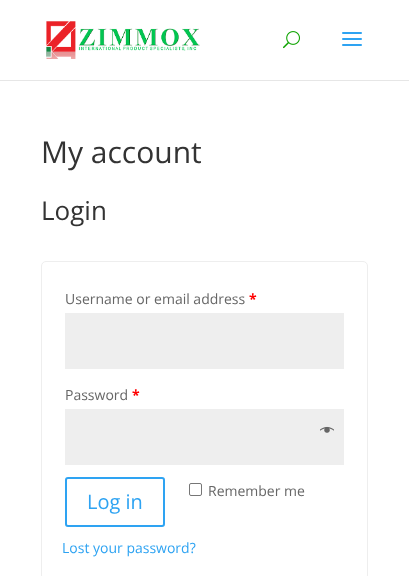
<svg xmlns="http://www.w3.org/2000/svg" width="409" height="576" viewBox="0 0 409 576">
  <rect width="100%" height="100%" fill="#fff"/>
  <path d="M0 80h409v1H0z" fill="#e6e6e6"/>
  <image x="46" y="21" width="154" height="38" href="img/1.png"/>
  <image x="283" y="31" width="17" height="18" href="img/2.png"/>
  <image x="342" y="32" width="20" height="14" href="img/3.png"/>
  <rect x="41.5" y="261.5" width="326" height="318" rx="4.5" fill="none" stroke="#eee"/>
  <path d="M65 313h279v56H65z" fill="#eee"/>
  <path d="M65 409h279v56H65z" fill="#eee"/>
  <image x="320" y="426" width="14" height="7" href="img/4.png"/>
  <rect x="189.5" y="483.5" width="12" height="12" rx="1.5" fill="none" stroke="#767676"/>
  <rect x="66" y="478" width="98" height="48" rx="2" fill="none" stroke="#2ea3f2" stroke-width="2"/>
  <text x="41" y="163" font-family="Open Sans" font-size="30" fill="#333">My account</text>
  <text x="41" y="220" font-family="Open Sans" font-size="26" fill="#333">Login</text>
  <text x="65" y="304" font-family="Open Sans" font-size="14" fill="#666">Username or email address</text>
  <text x="249" y="304" font-family="Open Sans" font-size="14" font-weight="bold" fill="#f00">*</text>
  <text x="65" y="400" font-family="Open Sans" font-size="14" fill="#666">Password</text>
  <text x="132" y="400" font-family="Open Sans" font-size="14" font-weight="bold" fill="#f00">*</text>
  <text x="208" y="496" font-family="Open Sans" font-size="14" fill="#666">Remember me</text>
  <text x="87" y="509" font-family="Open Sans" font-size="20" fill="#2ea3f2">Log in</text>
  <text x="62" y="553" font-family="Open Sans" font-size="14" fill="#2ea3f2">Lost your password?</text>
</svg>
